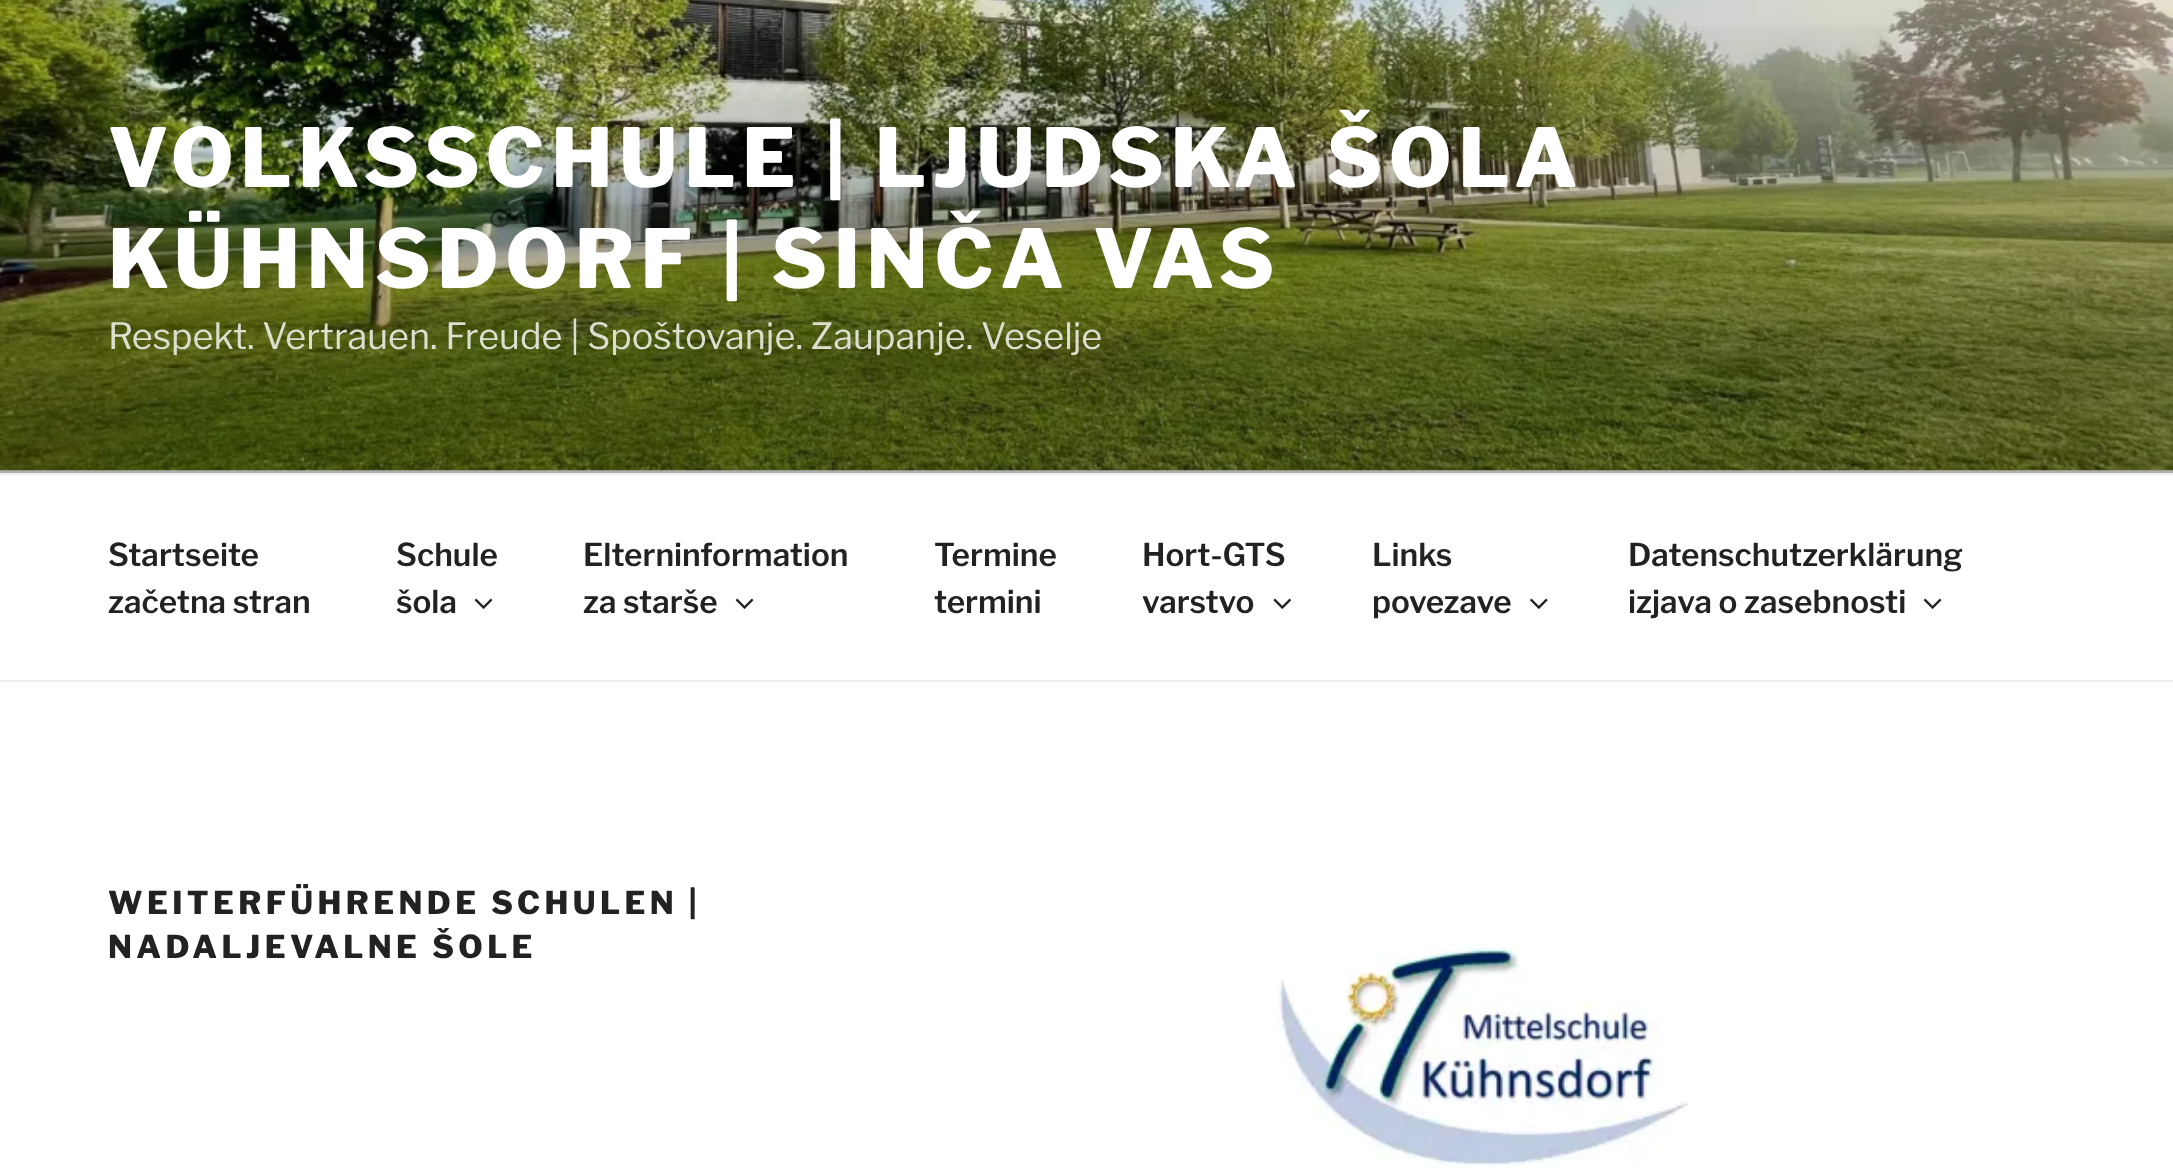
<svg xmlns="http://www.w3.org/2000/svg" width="2173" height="1175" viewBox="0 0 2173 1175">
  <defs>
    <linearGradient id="g1" gradientUnits="userSpaceOnUse" x1="1087" y1="0" x2="1087" y2="473"><stop offset="0" stop-color="#000" stop-opacity="0"/><stop offset="0.75" stop-color="#000" stop-opacity="0.3"/><stop offset="1" stop-color="#000" stop-opacity="0.3"/></linearGradient>
  </defs>
  <rect width="100%" height="100%" fill="#fff"/>
  <path d="M0 470h2173v3H0z" fill="#fafafa"/>
  <image x="0" y="0" width="2173" height="471" href="img/1.png"/>
  <path d="M0 26h2173v447H0z" fill="url(#g1)"/>
  <path d="M0 473h2173v2H0z" fill="#eee"/>
  <path d="M0 680h2173v2H0z" fill="#eee"/>
  <image x="474" y="598" width="19" height="11" href="img/2.png"/>
  <image x="735" y="598" width="19" height="11" href="img/2.png"/>
  <image x="1273" y="598" width="18" height="11" href="img/3.png"/>
  <image x="1530" y="598" width="18" height="11" href="img/4.png"/>
  <image x="1923" y="598" width="19" height="11" href="img/2.png"/>
  <image x="1277" y="944" width="412" height="225" href="img/5.png"/>
  <g font-family="Libre Franklin" font-size="81" font-weight="100" letter-spacing="6.5" fill="#fff">
    <text x="108" y="187">VOLKSSCHULE | LJUDSKA ŠOLA</text>
    <text x="108" y="288">KÜHNSDORF | SINČA VAS</text>
  </g>
  <text x="108" y="349" font-family="'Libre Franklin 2'" font-size="36" font-weight="100" fill="#dcded0">Respekt. Vertrauen. Freude | Spoštovanje. Zaupanje. Veselje</text>
  <g font-family="'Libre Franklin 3'" font-size="31.5" font-weight="100" fill="#222">
    <text x="108" y="566">Startseite</text>
    <text x="108" y="613">začetna stran</text>
    <text x="396" y="566">Schule</text>
    <text x="396" y="613">šola</text>
    <text x="583" y="566">Elterninformation</text>
    <text x="583" y="613">za starše</text>
    <text x="934" y="566">Termine</text>
    <text x="934" y="613">termini</text>
    <text x="1142" y="566">Hort-GTS</text>
    <text x="1142" y="613">varstvo</text>
    <text x="1372" y="566">Links</text>
    <text x="1372" y="613">povezave</text>
    <text x="1628" y="566">Datenschutzerklärung</text>
    <text x="1628" y="613">izjava o zasebnosti</text>
  </g>
  <g font-family="Libre Franklin" font-size="31.5" font-weight="100" letter-spacing="4.4" fill="#222">
    <text x="108" y="914">WEITERFÜHRENDE SCHULEN |</text>
    <text x="108" y="958">NADALJEVALNE ŠOLE</text>
  </g>
</svg>
